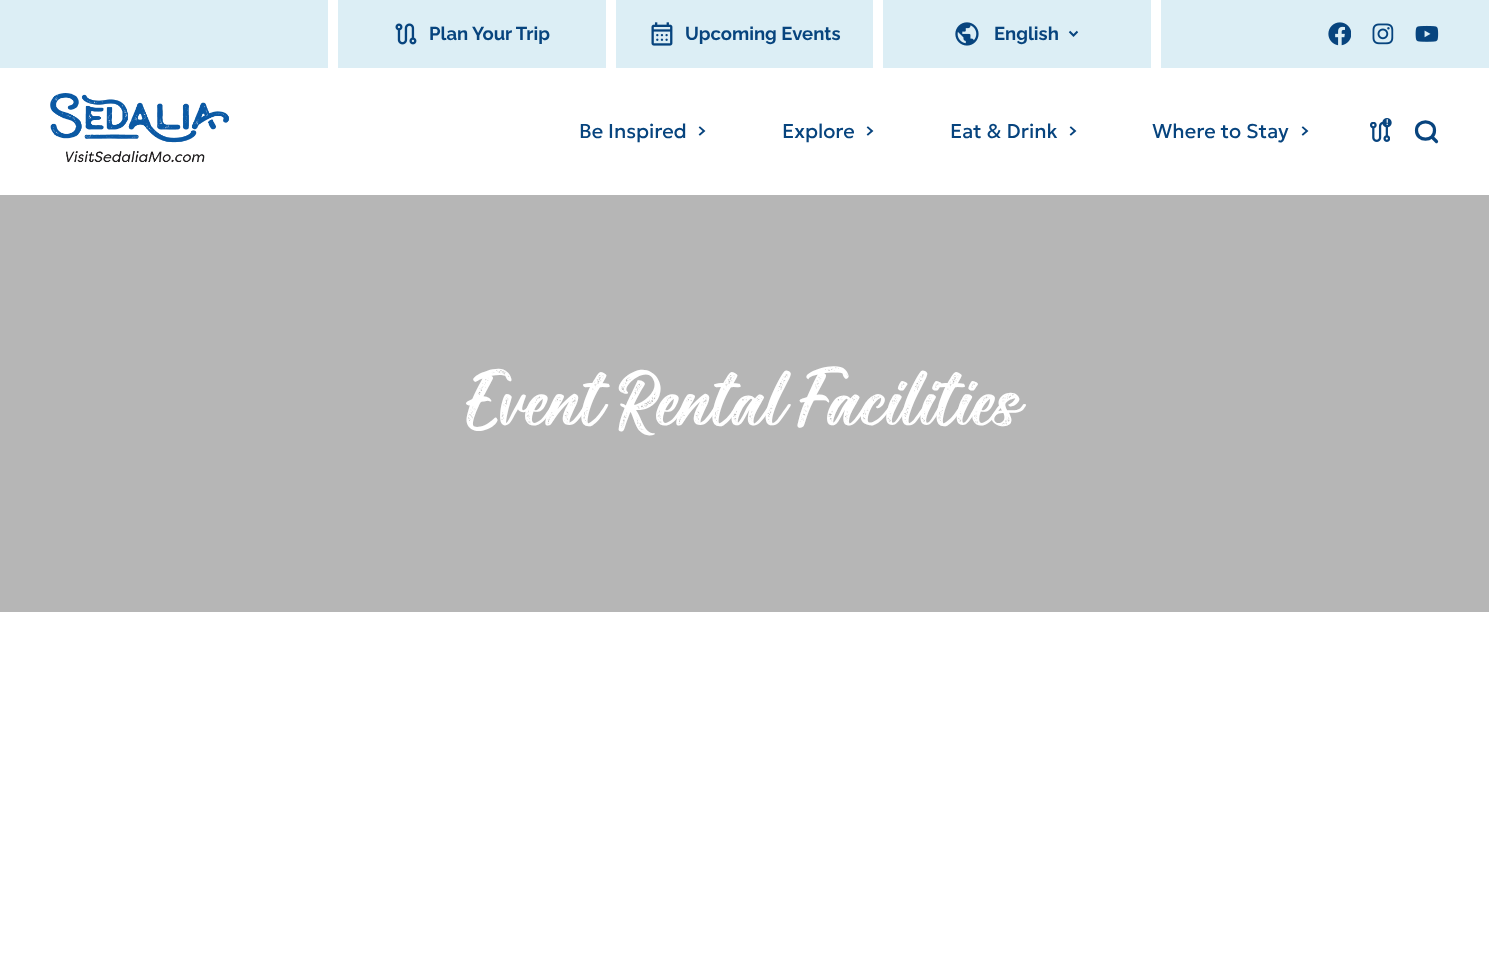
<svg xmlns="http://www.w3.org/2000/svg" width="1489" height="955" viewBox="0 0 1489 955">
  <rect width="100%" height="100%" fill="#fff"/>
  <path d="M0 0h1489v68H0z" fill="#dceef5"/>
  <path d="M328 0h10v68H328z" fill="#fff"/>
  <image x="395" y="23" width="22" height="22" href="img/1.png"/>
  <path d="M873 0h10v68H873z" fill="#fff"/>
  <path d="M606 0h10v68H606z" fill="#fff"/>
  <image x="651" y="22" width="22" height="24" href="img/2.png"/>
  <path d="M1151 0h10v68H1151z" fill="#fff"/>
  <image x="955" y="22" width="24" height="24" href="img/3.png"/>
  <path d="M1069.5 31.5L1073.5 35.5L1077.5 31.5" fill="none" stroke="#07447e" stroke-width="2"/>
  <image x="1328" y="22" width="23" height="24" href="img/4.png"/>
  <image x="1372" y="23" width="22" height="22" href="img/5.png"/>
  <image x="1415" y="25" width="24" height="17" href="img/6.png"/>
  <image x="50" y="93" width="179" height="70" href="img/7.png"/>
  <image x="1370" y="118" width="22" height="24" href="img/8.png"/>
  <path d="M1436.5 141.5L1432 137M1434.5 130.5C1434.5 142 1416.5 142 1416.5 130.5C1416.5 119 1434.5 119 1434.5 130.5Z" fill="none" stroke="#08447e" stroke-width="3.2" stroke-linecap="round"/>
  <path d="M700 134.5L704 131L700 127.5" fill="none" stroke="#08447e" stroke-width="1.9" stroke-linecap="square"/>
  <path d="M868 134.5L872 131L868 127.5" fill="none" stroke="#08447e" stroke-width="1.9" stroke-linecap="square"/>
  <path d="M1071 134.5L1075 131L1071 127.5" fill="none" stroke="#08447e" stroke-width="1.9" stroke-linecap="square"/>
  <path d="M1303 134.5L1307 131L1303 127.5" fill="none" stroke="#08447e" stroke-width="1.9" stroke-linecap="square"/>
  <path d="M0 195h1489v417H0z" fill="#b6b6b6"/>
  <g font-family="Raleway" font-size="18.5" font-weight="bold" fill="#07447e">
    <text x="429" y="40">Plan Your Trip</text>
    <text x="685" y="40">Upcoming Events</text>
    <text x="994" y="40">English</text>
  </g>
  <text x="1386" y="125" font-family="Raleway" font-size="8" font-weight="bold" fill="#fff">!</text>
  <g font-family="Geologica" font-size="20" fill="#07447e">
    <text x="579" y="138">Be Inspired</text>
    <text x="782" y="138">Explore</text>
    <text x="950" y="138">Eat &amp; Drink</text>
    <text x="1152" y="138">Where to Stay</text>
  </g>
  <text x="469" y="425" font-family="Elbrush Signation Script" font-size="56" fill="#fff">Event Rental Facilities</text>
</svg>
